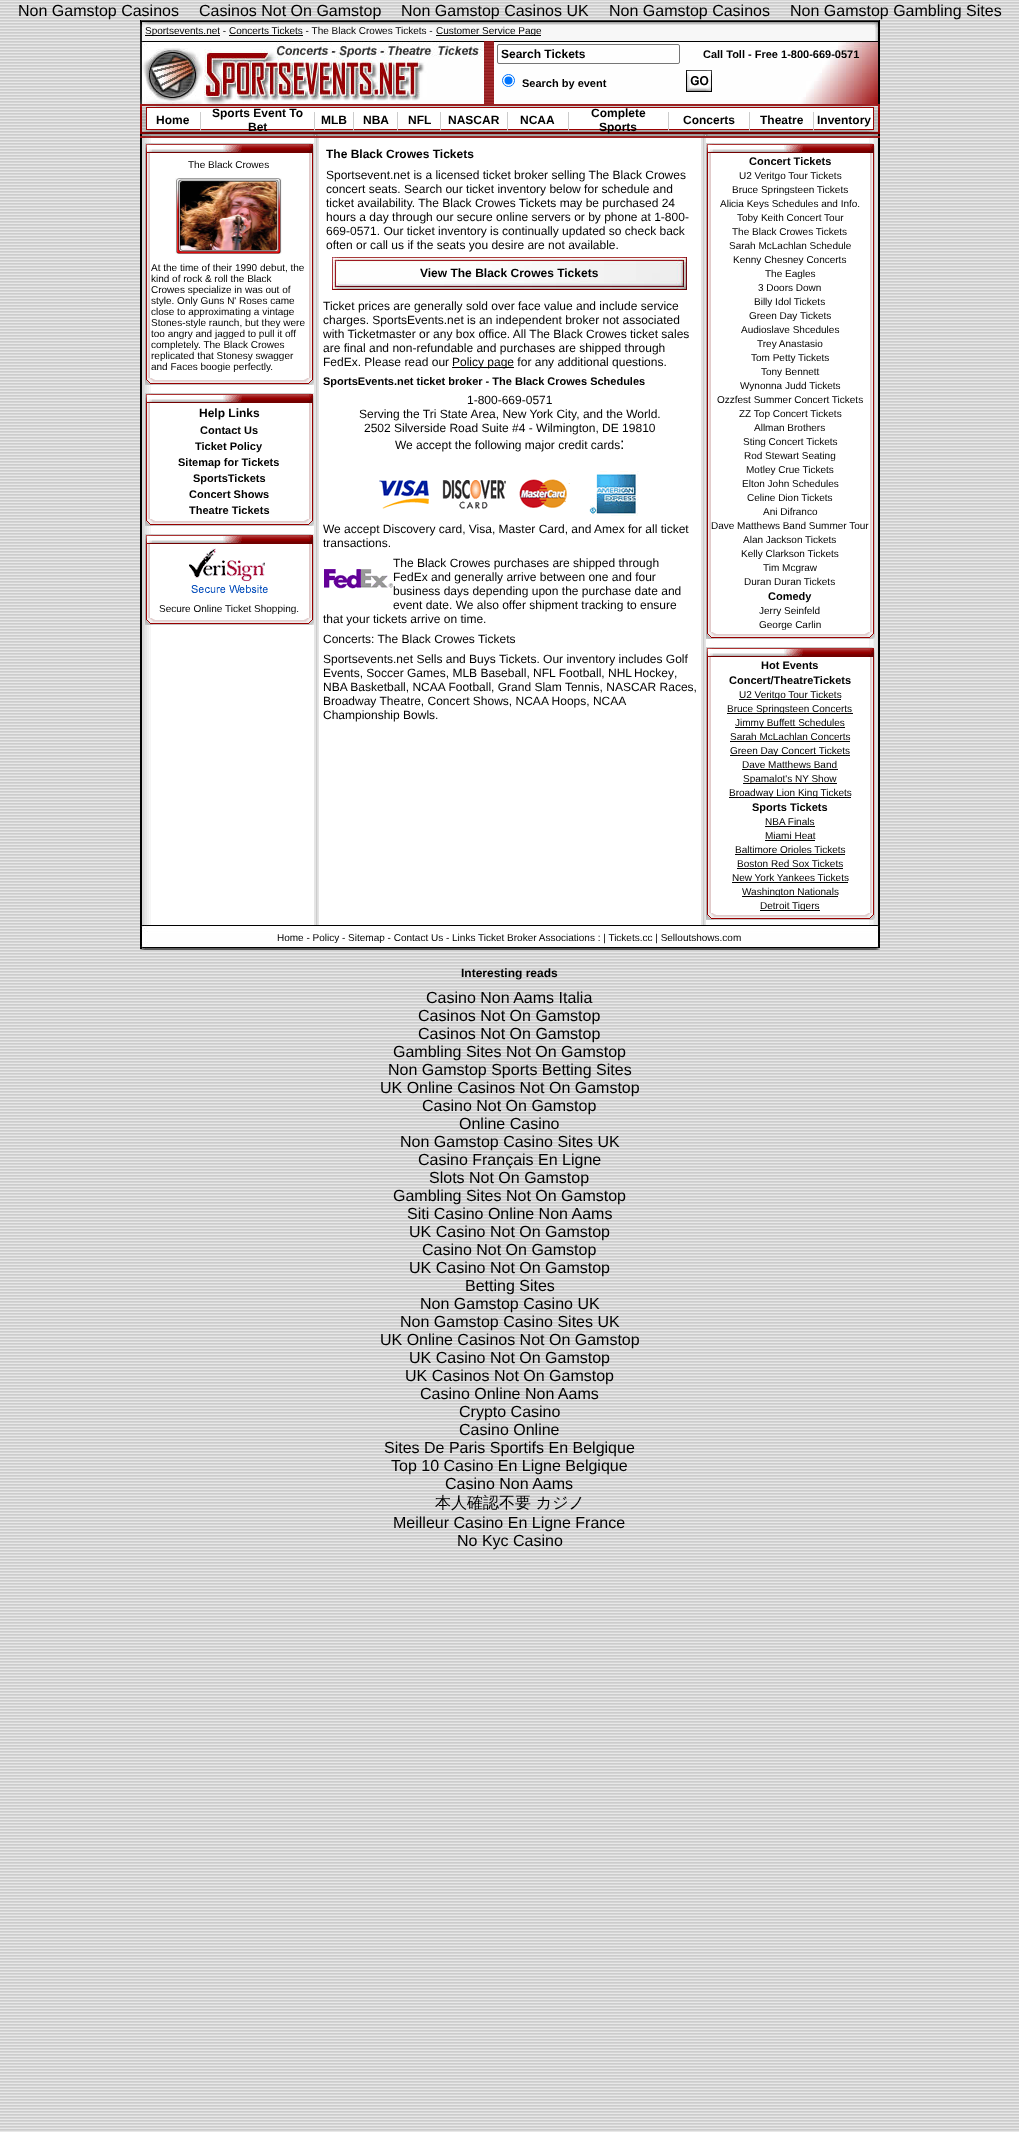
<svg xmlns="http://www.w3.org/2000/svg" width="1019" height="2132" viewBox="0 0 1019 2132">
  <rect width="100%" height="100%" fill="#fff"/>
  <image x="0" y="0" width="1019" height="2132" href="img/1.png"/>
  <image x="140" y="20" width="740" height="905" href="img/2.png"/>
  <image x="140" y="20" width="739" height="21" href="img/3.png"/>
  <path d="M145 35h75v1H145z" fill="#000"/>
  <path d="M436 35h105v1H436z" fill="#000"/>
  <path d="M229 35h74v1H229z" fill="#000"/>
  <image x="140" y="41" width="354" height="63" href="img/4.png"/>
  <image x="494" y="41" width="386" height="63" href="img/5.png"/>
  <rect x="497.5" y="44.5" width="182" height="19" rx="1.5" fill="none" stroke="#767676"/>
  <circle cx="508.5" cy="80.5" r="6" fill="none" stroke="#0075ff"/>
  <circle cx="508.5" cy="80.5" r="4" fill="#0075ff"/>
  <image x="686" y="70" width="26" height="22" href="img/6.png"/>
  <image x="140" y="104" width="740" height="34" href="img/7.png"/>
  <path d="M200 112h1v19H200z" fill="#ccc"/>
  <path d="M314 112h1v19H314z" fill="#ccc"/>
  <path d="M353 112h1v19H353z" fill="#ccc"/>
  <path d="M397 112h1v19H397z" fill="#ccc"/>
  <path d="M440 112h1v19H440z" fill="#ccc"/>
  <path d="M507 112h1v19H507z" fill="#ccc"/>
  <path d="M568 112h1v19H568z" fill="#ccc"/>
  <path d="M668 112h1v19H668z" fill="#ccc"/>
  <path d="M749 112h1v19H749z" fill="#ccc"/>
  <path d="M813 112h1v19H813z" fill="#ccc"/>
  <image x="145" y="153" width="169" height="225" href="img/8.png"/>
  <image x="145" y="143" width="169" height="10" href="img/9.png"/>
  <image x="175" y="178" width="107" height="76" href="img/10.png"/>
  <image x="145" y="378" width="169" height="7" href="img/11.png"/>
  <image x="145" y="403" width="169" height="116" href="img/12.png"/>
  <image x="145" y="393" width="169" height="10" href="img/9.png"/>
  <image x="145" y="519" width="169" height="7" href="img/11.png"/>
  <image x="145" y="544" width="169" height="74" href="img/13.png"/>
  <image x="145" y="534" width="169" height="10" href="img/9.png"/>
  <image x="189" y="548" width="79" height="45" href="img/14.png"/>
  <image x="145" y="618" width="169" height="7" href="img/11.png"/>
  <image x="332" y="257" width="355" height="33" href="img/15.png"/>
  <path d="M452 367h62v1H452z" fill="#000"/>
  <image x="379" y="480" width="50" height="29" href="img/16.png"/>
  <image x="442" y="480" width="64" height="29" href="img/17.png"/>
  <image x="519" y="479" width="51" height="29" href="img/18.png"/>
  <image x="589" y="471" width="50" height="45" href="img/19.png"/>
  <image x="324" y="569" width="69" height="20" href="img/20.png"/>
  <image x="706" y="153" width="169" height="479" href="img/21.png"/>
  <image x="706" y="143" width="169" height="10" href="img/9.png"/>
  <image x="706" y="632" width="169" height="7" href="img/11.png"/>
  <image x="706" y="657" width="169" height="256" href="img/22.png"/>
  <image x="706" y="647" width="169" height="10" href="img/9.png"/>
  <path d="M739 699h102v1H739z" fill="#000"/>
  <path d="M727 713h126v1H727z" fill="#000"/>
  <path d="M735 727h110v1H735z" fill="#000"/>
  <path d="M730 741h120v1H730z" fill="#000"/>
  <path d="M730 755h120v1H730z" fill="#000"/>
  <path d="M742 769h96v1H742z" fill="#000"/>
  <path d="M743 783h94v1H743z" fill="#000"/>
  <path d="M729 797h122v1H729z" fill="#000"/>
  <path d="M765 826h50v1H765z" fill="#000"/>
  <path d="M765 840h50v1H765z" fill="#000"/>
  <path d="M735 854h110v1H735z" fill="#000"/>
  <path d="M737 868h106v1H737z" fill="#000"/>
  <path d="M732 882h116v1H732z" fill="#000"/>
  <path d="M742 896h96v1H742z" fill="#000"/>
  <path d="M760 910h60v1H760z" fill="#000"/>
  <image x="706" y="913" width="169" height="7" href="img/11.png"/>
  <image x="140" y="925" width="740" height="25" href="img/23.png"/>
  <g font-family="Liberation Sans" font-size="16" fill="#000">
    <text x="18" y="16">Non Gamstop Casinos</text>
    <text x="199" y="16">Casinos Not On Gamstop</text>
    <text x="401" y="16">Non Gamstop Casinos UK</text>
    <text x="609" y="16">Non Gamstop Casinos</text>
    <text x="790" y="16">Non Gamstop Gambling Sites</text>
  </g>
  <g font-family="Liberation Sans" font-size="10" fill="#000">
    <text x="145" y="34">Sportsevents.net - Concerts Tickets - The Black Crowes Tickets -</text>
    <text x="436" y="34">Customer Service Page</text>
  </g>
  <text x="501" y="58" font-family="Liberation Sans" font-size="12" font-weight="bold" fill="#000">Search Tickets</text>
  <g font-family="Liberation Sans" font-size="11" font-weight="bold" fill="#000">
    <text x="703" y="58">Call Toll - Free 1-800-669-0571</text>
    <text x="522" y="87">Search by event</text>
  </g>
  <g font-family="Liberation Sans" font-size="12" font-weight="bold" fill="#000">
    <text x="156" y="124">Home</text>
    <text x="212" y="117">Sports Event To</text>
    <text x="248" y="131">Bet</text>
    <text x="321" y="124">MLB</text>
    <text x="363" y="124">NBA</text>
    <text x="408" y="124">NFL</text>
    <text x="448" y="124">NASCAR</text>
    <text x="520" y="124">NCAA</text>
    <text x="591" y="117">Complete</text>
    <text x="599" y="131">Sports</text>
    <text x="683" y="124">Concerts</text>
    <text x="760" y="124">Theatre</text>
    <text x="817" y="124">Inventory</text>
  </g>
  <g font-family="Liberation Sans" font-size="10" fill="#000">
    <text x="188" y="168">The Black Crowes</text>
    <text x="151" y="271">At the time of their 1990 debut, the</text>
    <text x="151" y="282">kind of rock &amp; roll the Black</text>
    <text x="151" y="293">Crowes specialize in was out of</text>
    <text x="151" y="304">style. Only Guns N' Roses came</text>
    <text x="151" y="315">close to approximating a vintage</text>
    <text x="151" y="326">Stones-style raunch, but they were</text>
    <text x="151" y="337">too angry and jagged to pull it off</text>
    <text x="151" y="348">completely. The Black Crowes</text>
    <text x="151" y="359">replicated that Stonesy swagger</text>
    <text x="151" y="370">and Faces boogie perfectly.</text>
  </g>
  <text x="199" y="417" font-family="Liberation Sans" font-size="12" font-weight="bold" fill="#000">Help Links</text>
  <g font-family="Liberation Sans" font-size="11" font-weight="bold" fill="#000">
    <text x="200" y="434">Contact Us</text>
    <text x="195" y="450">Ticket Policy</text>
    <text x="178" y="466">Sitemap for Tickets</text>
    <text x="193" y="482">SportsTickets</text>
    <text x="189" y="498">Concert Shows</text>
    <text x="189" y="514">Theatre Tickets</text>
  </g>
  <text x="159" y="612" font-family="Liberation Sans" font-size="10" fill="#000">Secure Online Ticket Shopping.</text>
  <text x="326" y="158" font-family="Liberation Sans" font-size="12" font-weight="bold" fill="#000">The Black Crowes Tickets</text>
  <g font-family="Liberation Sans" font-size="12" fill="#000">
    <text x="326" y="179">Sportsevent.net is a licensed ticket broker selling The Black Crowes</text>
    <text x="326" y="193">concert seats. Search our ticket inventory below for schedule and</text>
    <text x="326" y="207">ticket availability. The Black Crowes Tickets may be purchased 24</text>
    <text x="326" y="221">hours a day through our secure online servers or by phone at 1-800-</text>
    <text x="326" y="235">669-0571. Our ticket inventory is continually updated so check back</text>
    <text x="326" y="249">often or call us if the seats you desire are not available.</text>
  </g>
  <text x="420" y="277" font-family="Liberation Sans" font-size="12" font-weight="bold" fill="#000">View The Black Crowes Tickets</text>
  <g font-family="Liberation Sans" font-size="12" fill="#000">
    <text x="323" y="310">Ticket prices are generally sold over face value and include service</text>
    <text x="323" y="324">charges. SportsEvents.net is an independent broker not associated</text>
    <text x="323" y="338">with Ticketmaster or any box office. All The Black Crowes ticket sales</text>
    <text x="323" y="352">are final and non-refundable and purchases are shipped through</text>
    <text x="323" y="366">FedEx. Please read our</text>
    <text x="452" y="366">Policy page for any additional questions.</text>
  </g>
  <text x="323" y="385" font-family="Liberation Sans" font-size="11" font-weight="bold" fill="#000">SportsEvents.net ticket broker - The Black Crowes Schedules</text>
  <g font-family="Liberation Sans" font-size="12" fill="#000">
    <text x="467" y="404">1-800-669-0571</text>
    <text x="359" y="418">Serving the Tri State Area, New York City, and the World.</text>
    <text x="364" y="432">2502 Silverside Road Suite #4 - Wilmington, DE 19810</text>
    <text x="395" y="449">We accept the following major credit cards</text>
  </g>
  <text x="620" y="449" font-family="Liberation Sans" font-size="16" fill="#000">:</text>
  <g font-family="Liberation Sans" font-size="12" fill="#000">
    <text x="323" y="533">We accept Discovery card, Visa, Master Card, and Amex for all ticket</text>
    <text x="323" y="547">transactions.</text>
    <text x="393" y="567">The Black Crowes purchases are shipped through</text>
    <text x="393" y="581">FedEx and generally arrive between one and four</text>
    <text x="393" y="595">business days depending upon the purchase date and</text>
    <text x="393" y="609">event date. We also offer shipment tracking to ensure</text>
    <text x="323" y="623">that your tickets arrive on time.</text>
    <text x="323" y="643">Concerts: The Black Crowes Tickets</text>
    <text x="323" y="663">Sportsevents.net Sells and Buys Tickets. Our inventory includes Golf</text>
    <text x="323" y="677">Events, Soccer Games, MLB Baseball, NFL Football,</text>
    <text x="608" y="677" word-spacing="-1">NHL Hockey</text>
    <text x="674" y="677">,</text>
    <text x="323" y="691">NBA Basketball, NCAA Football, Grand Slam Tennis, NASCAR Races,</text>
    <text x="323" y="705">Broadway Theatre, Concert Shows, NCAA Hoops, NCAA</text>
    <text x="323" y="719">Championship Bowls.</text>
  </g>
  <text x="749" y="165" font-family="Liberation Sans" font-size="11" font-weight="bold" fill="#000">Concert Tickets</text>
  <g font-family="Liberation Sans" font-size="10" fill="#000">
    <text x="739" y="179">U2 Veritgo Tour Tickets</text>
    <text x="732" y="193">Bruce Springsteen Tickets</text>
    <text x="720" y="207">Alicia Keys Schedules and Info.</text>
    <text x="737" y="221">Toby Keith Concert Tour</text>
    <text x="732" y="235">The Black Crowes Tickets</text>
    <text x="729" y="249">Sarah McLachlan Schedule</text>
    <text x="733" y="263">Kenny Chesney Concerts</text>
    <text x="765" y="277">The Eagles</text>
    <text x="758" y="291">3 Doors Down</text>
    <text x="754" y="305">Billy Idol Tickets</text>
    <text x="749" y="319">Green Day Tickets</text>
    <text x="741" y="333">Audioslave Shcedules</text>
    <text x="757" y="347">Trey Anastasio</text>
    <text x="751" y="361">Tom Petty Tickets</text>
    <text x="761" y="375">Tony Bennett</text>
    <text x="740" y="389">Wynonna Judd Tickets</text>
    <text x="717" y="403">Ozzfest Summer Concert Tickets</text>
    <text x="739" y="417">ZZ Top Concert Tickets</text>
    <text x="754" y="431">Allman Brothers</text>
    <text x="743" y="445">Sting Concert Tickets</text>
    <text x="744" y="459">Rod Stewart Seating</text>
    <text x="746" y="473">Motley Crue Tickets</text>
    <text x="742" y="487">Elton John Schedules</text>
    <text x="747" y="501">Celine Dion Tickets</text>
    <text x="763" y="515">Ani Difranco</text>
    <text x="711" y="529">Dave Matthews Band Summer Tour</text>
    <text x="743" y="543">Alan Jackson Tickets</text>
    <text x="741" y="557">Kelly Clarkson Tickets</text>
    <text x="763" y="571">Tim Mcgraw</text>
    <text x="744" y="585">Duran Duran Tickets</text>
  </g>
  <text x="768" y="600" font-family="Liberation Sans" font-size="11" font-weight="bold" fill="#000">Comedy</text>
  <g font-family="Liberation Sans" font-size="10" fill="#000">
    <text x="759" y="614">Jerry Seinfeld</text>
    <text x="759" y="628">George Carlin</text>
  </g>
  <g font-family="Liberation Sans" font-size="11" font-weight="bold" fill="#000">
    <text x="761" y="669">Hot Events</text>
    <text x="729" y="684">Concert/TheatreTickets</text>
  </g>
  <g font-family="Liberation Sans" font-size="10" fill="#000">
    <text x="739" y="698">U2 Veritgo Tour Tickets</text>
    <text x="727" y="712">Bruce Springsteen Concerts</text>
    <text x="735" y="726">Jimmy Buffett Schedules</text>
    <text x="730" y="740">Sarah McLachlan Concerts</text>
    <text x="730" y="754">Green Day Concert Tickets</text>
    <text x="742" y="768">Dave Matthews Band</text>
    <text x="743" y="782">Spamalot's NY Show</text>
    <text x="729" y="796">Broadway Lion King Tickets</text>
  </g>
  <text x="752" y="811" font-family="Liberation Sans" font-size="11" font-weight="bold" fill="#000">Sports Tickets</text>
  <g font-family="Liberation Sans" font-size="10" fill="#000">
    <text x="765" y="825">NBA Finals</text>
    <text x="765" y="839">Miami Heat</text>
    <text x="735" y="853">Baltimore Orioles Tickets</text>
    <text x="737" y="867">Boston Red Sox Tickets</text>
    <text x="732" y="881">New York Yankees Tickets</text>
    <text x="742" y="895">Washington Nationals</text>
    <text x="760" y="909">Detroit Tigers</text>
    <text x="277" y="941">Home - Policy - Sitemap - Contact Us - Links Ticket Broker Associations : | Tickets.cc | Selloutshows.com</text>
  </g>
  <text x="461" y="977" font-family="Liberation Sans" font-size="12" font-weight="bold" fill="#000">Interesting reads</text>
  <g font-family="Liberation Sans" font-size="16" fill="#000">
    <text x="426" y="1003">Casino Non Aams Italia</text>
    <text x="418" y="1021">Casinos Not On Gamstop</text>
    <text x="418" y="1039">Casinos Not On Gamstop</text>
    <text x="393" y="1057">Gambling Sites Not On Gamstop</text>
    <text x="388" y="1075">Non Gamstop Sports Betting Sites</text>
    <text x="380" y="1093">UK Online Casinos Not On Gamstop</text>
    <text x="422" y="1111">Casino Not On Gamstop</text>
    <text x="459" y="1129">Online Casino</text>
    <text x="400" y="1147">Non Gamstop Casino Sites UK</text>
    <text x="418" y="1165">Casino Français En Ligne</text>
    <text x="429" y="1183">Slots Not On Gamstop</text>
    <text x="393" y="1201">Gambling Sites Not On Gamstop</text>
    <text x="407" y="1219">Siti Casino Online Non Aams</text>
    <text x="409" y="1237">UK Casino Not On Gamstop</text>
    <text x="422" y="1255">Casino Not On Gamstop</text>
    <text x="409" y="1273">UK Casino Not On Gamstop</text>
    <text x="465" y="1291">Betting Sites</text>
    <text x="420" y="1309">Non Gamstop Casino UK</text>
    <text x="400" y="1327">Non Gamstop Casino Sites UK</text>
    <text x="380" y="1345">UK Online Casinos Not On Gamstop</text>
    <text x="409" y="1363">UK Casino Not On Gamstop</text>
    <text x="405" y="1381">UK Casinos Not On Gamstop</text>
    <text x="420" y="1399">Casino Online Non Aams</text>
    <text x="459" y="1417">Crypto Casino</text>
    <text x="459" y="1435">Casino Online</text>
    <text x="384" y="1453">Sites De Paris Sportifs En Belgique</text>
    <text x="391" y="1471">Top 10 Casino En Ligne Belgique</text>
    <text x="445" y="1489">Casino Non Aams</text>
  </g>
  <text x="435" y="1508" font-family="WenQuanYi Zen Hei" font-size="16" font-weight="500" fill="#000">本人確認不要 カジノ</text>
  <g font-family="Liberation Sans" font-size="16" fill="#000">
    <text x="393" y="1528">Meilleur Casino En Ligne France</text>
    <text x="457" y="1546">No Kyc Casino</text>
  </g>
</svg>
